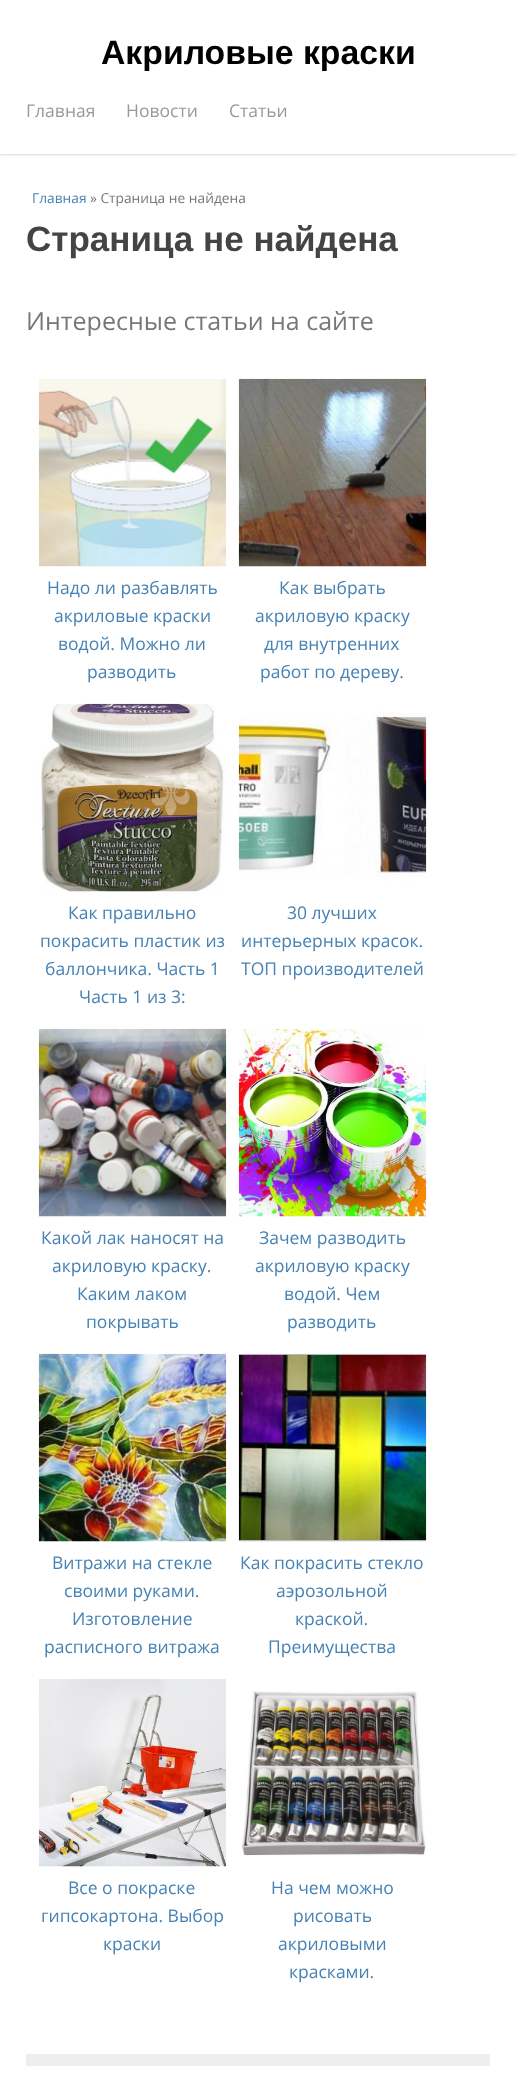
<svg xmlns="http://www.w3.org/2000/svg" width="516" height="2100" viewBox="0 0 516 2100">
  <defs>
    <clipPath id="clip1"><path d="M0 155h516v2H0z"/></clipPath>
  </defs>
  <rect width="100%" height="100%" fill="#fff"/>
  <g clip-path="url(#clip1)">
    <path d="M0 0h516v155H0z" fill="#0000001a" filter="blur(2px)"/>
  </g>
  <path d="M0 154h516v1H0z" fill="#e4e4e4"/>
  <image x="38" y="379" width="189" height="188" href="img/1.png"/>
  <image x="238" y="378" width="189" height="189" href="img/2.png"/>
  <image x="39" y="703" width="186" height="189" href="img/3.png"/>
  <image x="238" y="711" width="189" height="174" href="img/4.png"/>
  <image x="38" y="1028" width="189" height="189" href="img/5.png"/>
  <image x="238" y="1028" width="189" height="189" href="img/6.png"/>
  <image x="38" y="1353" width="189" height="189" href="img/7.png"/>
  <image x="238" y="1353" width="189" height="189" href="img/8.png"/>
  <image x="38" y="1679" width="189" height="188" href="img/9.png"/>
  <image x="241" y="1691" width="185" height="165" href="img/10.png"/>
  <path d="M26 2054h464v12H26z" fill="#eee"/>
  <text x="101" y="64" font-family="Liberation Sans" font-size="33.75" font-weight="bold" fill="#000">Акриловые краски</text>
  <g font-family="Open Sans" font-size="17.5" fill="#999">
    <text x="26" y="117">Главная</text>
    <text x="126" y="117">Новости</text>
    <text x="229" y="117">Статьи</text>
  </g>
  <text x="32" y="203" font-family="Open Sans" font-size="13.75" fill="#4682b4">Главная</text>
  <text x="90" y="203" font-family="Open Sans" font-size="13.75" fill="#777">» Страница не найдена</text>
  <text x="26" y="251" font-family="Liberation Sans" font-size="35" font-weight="bold" fill="#444">Страница не найдена</text>
  <text x="26" y="330" font-family="Open Sans" font-size="25" fill="#777">Интересные статьи на сайте</text>
  <g font-family="Open Sans" font-size="17.5" fill="#4682b4">
    <text x="47" y="594">Надо ли разбавлять</text>
    <text x="54" y="622">акриловые краски</text>
    <text x="58" y="650">водой. Можно ли</text>
    <text x="87" y="678">разводить</text>
    <text x="279" y="594">Как выбрать</text>
    <text x="255" y="622">акриловую краску</text>
    <text x="264" y="650">для внутренних</text>
    <text x="260" y="678">работ по дереву.</text>
    <text x="68" y="919">Как правильно</text>
    <text x="40" y="947">покрасить пластик из</text>
    <text x="45" y="975">баллончика. Часть 1</text>
    <text x="79" y="1003">Часть 1 из 3:</text>
    <text x="287" y="919">30 лучших</text>
    <text x="241" y="947">интерьерных красок.</text>
    <text x="241" y="975">ТОП производителей</text>
    <text x="41" y="1244">Какой лак наносят на</text>
    <text x="52" y="1272">акриловую краску.</text>
    <text x="77" y="1300">Каким лаком</text>
    <text x="86" y="1328">покрывать</text>
    <text x="259" y="1244">Зачем разводить</text>
    <text x="255" y="1272">акриловую краску</text>
    <text x="284" y="1300">водой. Чем</text>
    <text x="287" y="1328">разводить</text>
    <text x="52" y="1569">Витражи на стекле</text>
    <text x="64" y="1597">своими руками.</text>
    <text x="72" y="1625">Изготовление</text>
    <text x="44" y="1653">расписного витража</text>
    <text x="240" y="1569">Как покрасить стекло</text>
    <text x="276" y="1597">аэрозольной</text>
    <text x="295" y="1625">краской.</text>
    <text x="268" y="1653">Преимущества</text>
    <text x="68" y="1894">Все о покраске</text>
    <text x="41" y="1922">гипсокартона. Выбор</text>
    <text x="103" y="1950">краски</text>
    <text x="271" y="1894">На чем можно</text>
    <text x="293" y="1922">рисовать</text>
    <text x="278" y="1950">акриловыми</text>
    <text x="289" y="1978">красками.</text>
  </g>
</svg>
